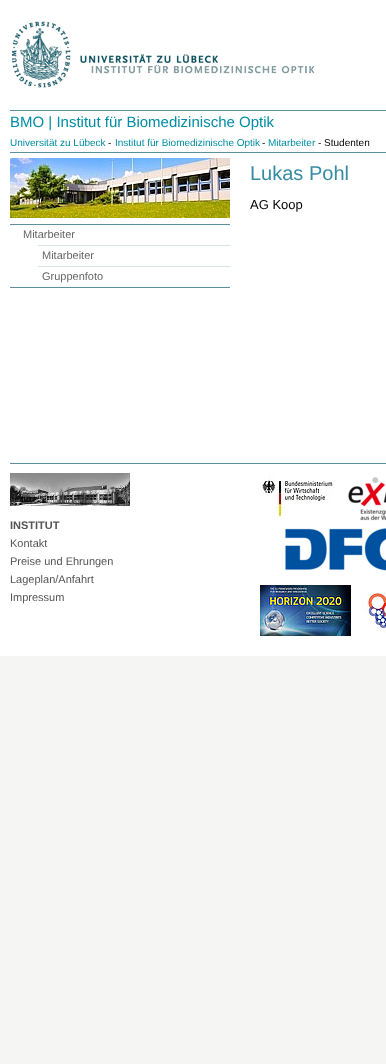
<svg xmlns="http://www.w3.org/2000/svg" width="386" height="1064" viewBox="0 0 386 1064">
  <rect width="100%" height="100%" fill="#f5f6f3"/>
  <path d="M0 0h386v656H0z" fill="#fff"/>
  <image x="11" y="21" width="304" height="67" href="img/1.png"/>
  <path d="M10 110h376v1H10z" fill="#5c8f99"/>
  <path d="M10 152h376v1H10z" fill="#5c8f99"/>
  <image x="10" y="158" width="220" height="60" href="img/2.png"/>
  <path d="M10 287h220v1H10z" fill="#5c8f99"/>
  <path d="M10 224h220v1H10z" fill="#5c8f99"/>
  <path d="M38 245h192v1H38z" fill="#d6e3e5"/>
  <path d="M38 266h192v1H38z" fill="#d6e3e5"/>
  <path d="M10 463h376v1H10z" fill="#5c8f99"/>
  <image x="10" y="473" width="120" height="33" href="img/3.png"/>
  <image x="260" y="473" width="74" height="46" href="img/4.png"/>
  <image x="348" y="477" width="38" height="44" href="img/5.png"/>
  <image x="285" y="528" width="101" height="43" href="img/6.png"/>
  <image x="260" y="585" width="91" height="51" href="img/7.png"/>
  <image x="361" y="593" width="25" height="40" href="img/8.png"/>
  <text x="10" y="127" font-family="Liberation Sans" font-size="15" fill="#008da5">BMO | Institut für Biomedizinische Optik</text>
  <text x="10" y="146" font-family="Liberation Sans" font-size="10" fill="#008da5">Universität zu Lübeck</text>
  <text x="108" y="146" font-family="Liberation Sans" font-size="10" fill="#000">-</text>
  <text x="115" y="146" font-family="Liberation Sans" font-size="10" fill="#008da5">Institut für Biomedizinische Optik</text>
  <text x="262" y="146" font-family="Liberation Sans" font-size="10" fill="#000">-</text>
  <text x="268" y="146" font-family="Liberation Sans" font-size="10" fill="#008da5">Mitarbeiter</text>
  <text x="318" y="146" font-family="Liberation Sans" font-size="10" fill="#000">- Studenten</text>
  <text x="250" y="180" font-family="Liberation Sans" font-size="20" fill="#368ca2">Lukas Pohl</text>
  <text x="250" y="209" font-family="Liberation Sans" font-size="13" fill="#000">AG Koop</text>
  <g font-family="Liberation Sans" font-size="11" fill="#666">
    <text x="23" y="238">Mitarbeiter</text>
    <text x="42" y="259">Mitarbeiter</text>
    <text x="42" y="280">Gruppenfoto</text>
  </g>
  <text x="10" y="529" font-family="Liberation Sans" font-size="11" font-weight="bold" fill="#555">INSTITUT</text>
  <g font-family="Liberation Sans" font-size="11" fill="#555">
    <text x="10" y="547">Kontakt</text>
    <text x="10" y="565">Preise und Ehrungen</text>
    <text x="10" y="583">Lageplan/Anfahrt</text>
    <text x="10" y="601">Impressum</text>
  </g>
</svg>
